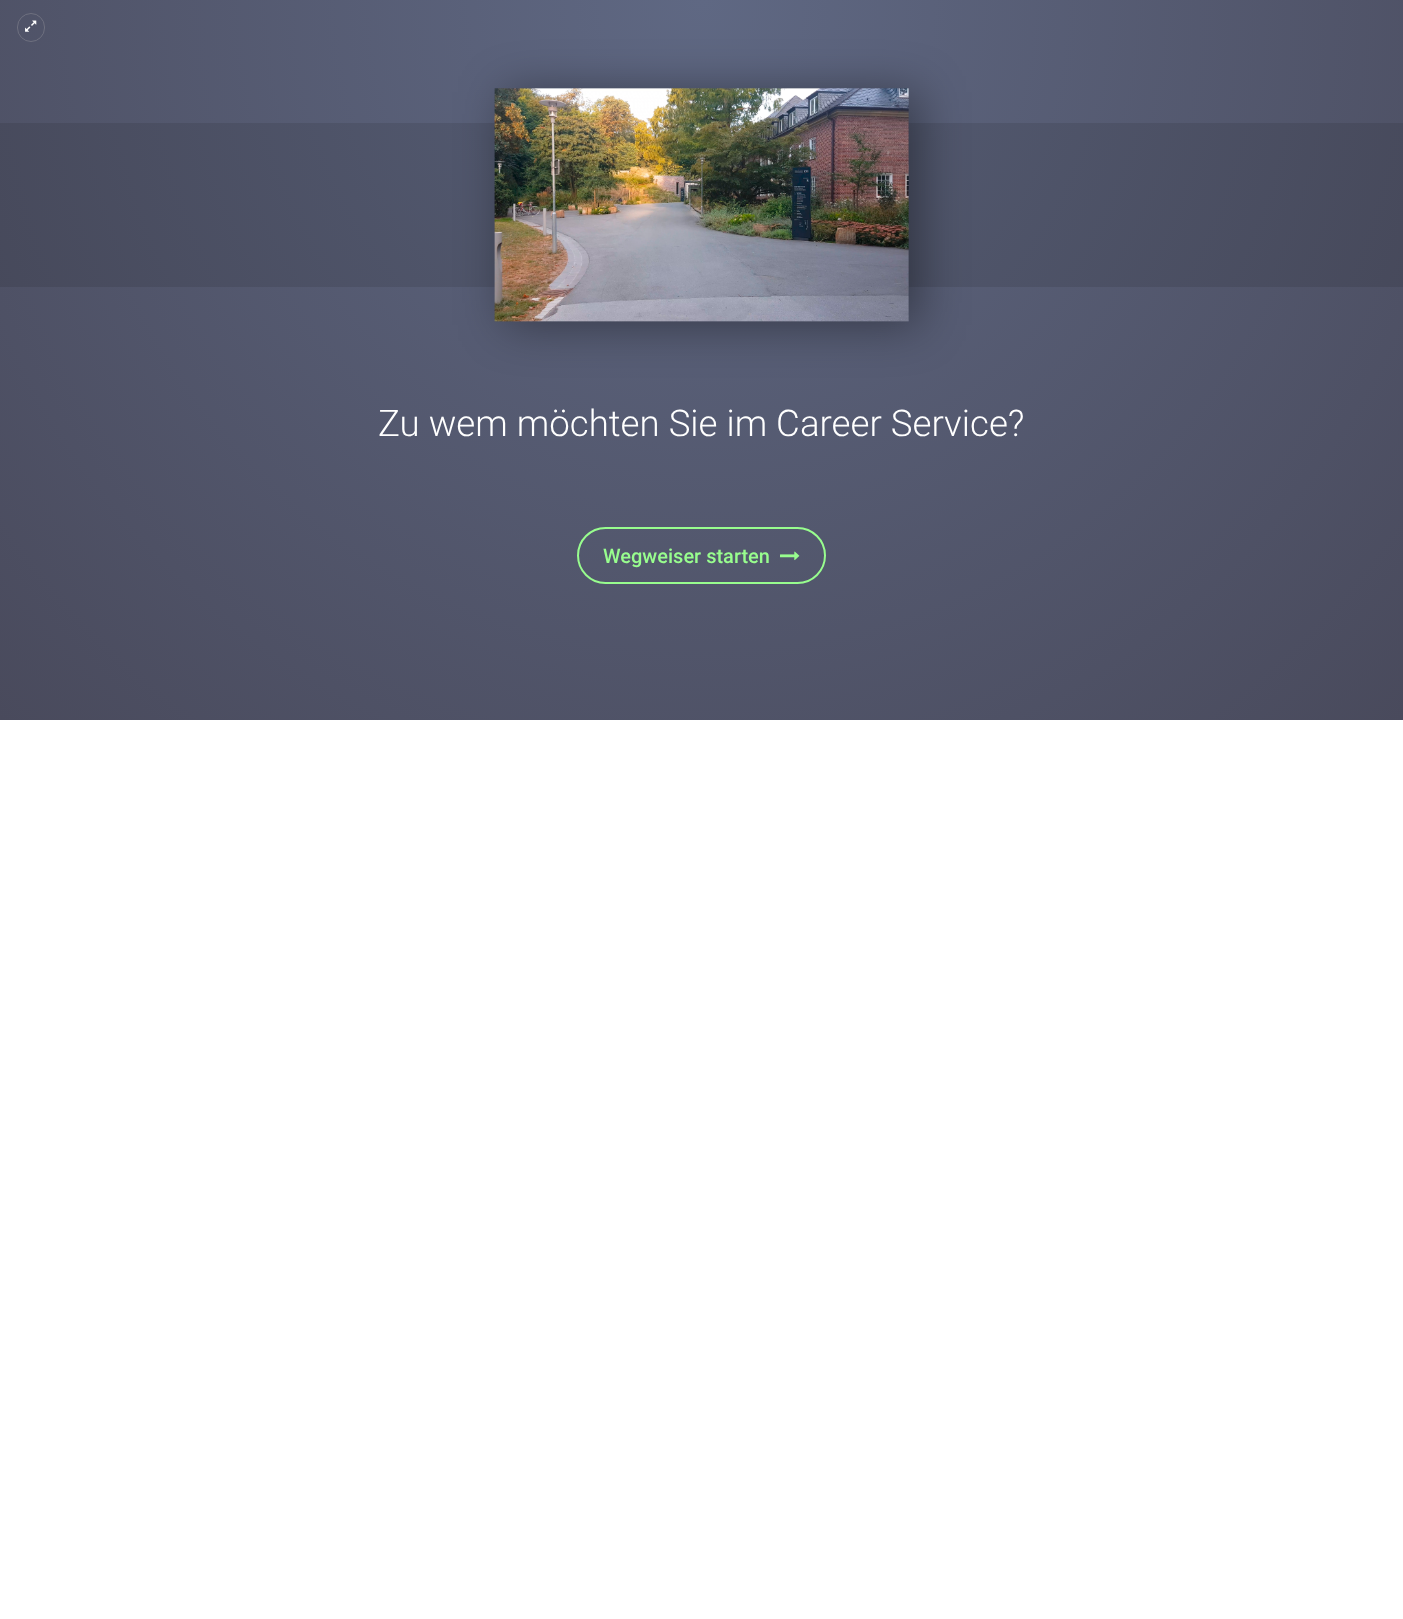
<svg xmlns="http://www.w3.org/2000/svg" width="1403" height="1619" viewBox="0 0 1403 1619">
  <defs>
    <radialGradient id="g1" gradientUnits="userSpaceOnUse" cx="0" cy="0" r="1" gradientTransform="matrix(992 0 0 1018 702 0)"><stop offset="0" stop-color="#5f6883"/><stop offset="1" stop-color="#494a5c"/></radialGradient>
    <radialGradient id="g2" gradientUnits="userSpaceOnUse" cx="0" cy="0" r="1" gradientTransform="matrix(992 0 0 1018 702 0)"><stop offset="0" stop-color="#565e76"/><stop offset="1" stop-color="#424353"/></radialGradient>
  </defs>
  <rect width="100%" height="100%" fill="#fff"/>
  <path d="M0 0h1403v720H0z" fill="url(#g1)"/>
  <path d="M0 123h1403v164H0z" fill="url(#g2)"/>
  <rect x="17.5" y="13.5" width="27" height="28" rx="13.5" fill="none" stroke="#6e707f"/>
  <image x="25" y="20" width="12" height="12" href="img/1.png"/>
  <path d="M505 92h414v233H505z" fill="#00000066" filter="blur(23.5px)"/>
  <image x="494" y="88" width="415" height="234" href="img/2.png"/>
  <rect x="578" y="528" width="247" height="55" rx="27.5" fill="none" stroke="#98fd8e" stroke-width="2"/>
  <image x="780" y="551" width="20" height="10" href="img/3.png"/>
  <text x="378" y="436" font-family="Roboto" font-size="36.7" font-weight="300" fill="#fff">Zu wem möchten Sie im Career Service?</text>
  <text x="603" y="563" font-family="Roboto" font-size="20" font-weight="500" fill="#98fd8e">Wegweiser starten</text>
</svg>
